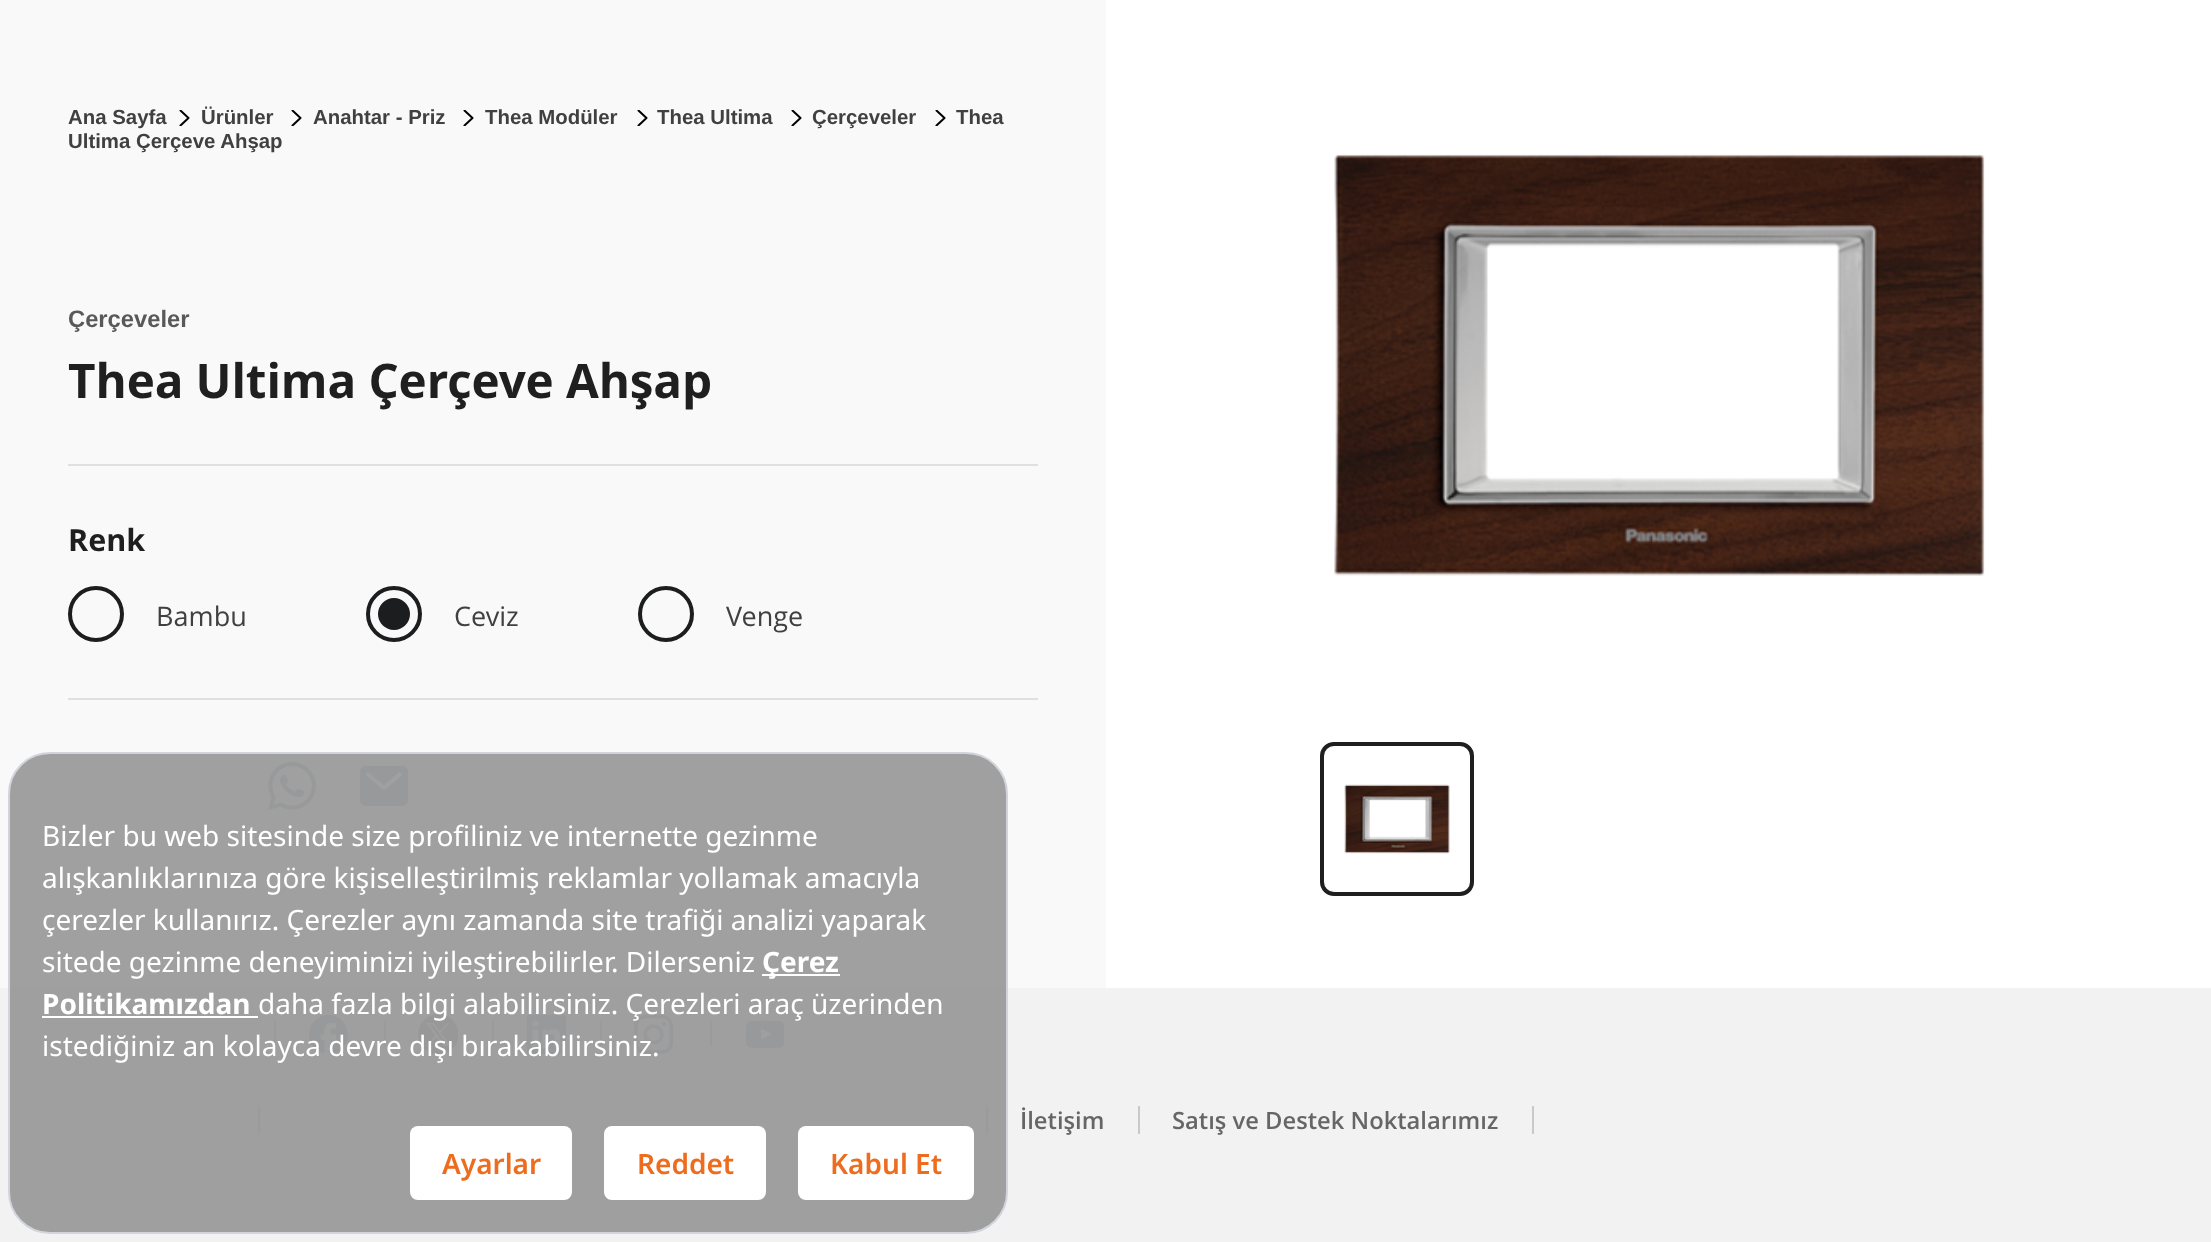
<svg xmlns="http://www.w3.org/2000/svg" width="2211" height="1242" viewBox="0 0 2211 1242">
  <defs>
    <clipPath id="clip1"><path d="M176 110h16v16H176z"/></clipPath>
    <clipPath id="clip2"><path d="M288 110h16v16H288z"/></clipPath>
    <clipPath id="clip3"><path d="M460 110h16v16H460z"/></clipPath>
    <clipPath id="clip4"><path d="M634 110h16v16H634z"/></clipPath>
    <clipPath id="clip5"><path d="M788 110h16v16H788z"/></clipPath>
    <clipPath id="clip6"><path d="M932 110h16v16H932z"/></clipPath>
  </defs>
  <rect width="100%" height="100%" fill="#fff"/>
  <path d="M0 0h1106v988H0z" fill="#f9f9f9"/>
  <g clip-path="url(#clip1)">
    <path d="M180.5 110.5L188.5 118L180.5 125.5" fill="none" stroke="#000" stroke-width="2" stroke-linecap="round" stroke-linejoin="round"/>
  </g>
  <g clip-path="url(#clip2)">
    <path d="M292.5 110.5L300.5 118L292.5 125.5" fill="none" stroke="#000" stroke-width="2" stroke-linecap="round" stroke-linejoin="round"/>
  </g>
  <g clip-path="url(#clip3)">
    <path d="M464.5 110.5L472.5 118L464.5 125.5" fill="none" stroke="#000" stroke-width="2" stroke-linecap="round" stroke-linejoin="round"/>
  </g>
  <g clip-path="url(#clip4)">
    <path d="M638.5 110.5L646.5 118L638.5 125.5" fill="none" stroke="#000" stroke-width="2" stroke-linecap="round" stroke-linejoin="round"/>
  </g>
  <g clip-path="url(#clip5)">
    <path d="M792.5 110.5L800.5 118L792.5 125.5" fill="none" stroke="#000" stroke-width="2" stroke-linecap="round" stroke-linejoin="round"/>
  </g>
  <g clip-path="url(#clip6)">
    <path d="M936.5 110.5L944.5 118L936.5 125.5" fill="none" stroke="#000" stroke-width="2" stroke-linecap="round" stroke-linejoin="round"/>
  </g>
  <path d="M68 464h970v2H68z" fill="#e0e0e0"/>
  <path d="M68 698h970v2H68z" fill="#e0e0e0"/>
  <circle cx="96" cy="614" r="26" fill="none" stroke="#1c1d1e" stroke-width="4"/>
  <circle cx="394" cy="614" r="26" fill="none" stroke="#1c1d1e" stroke-width="4"/>
  <circle cx="394" cy="614" r="16" fill="#1c1d1e"/>
  <circle cx="666" cy="614" r="26" fill="none" stroke="#1c1d1e" stroke-width="4"/>
  <image x="268" y="762" width="48" height="48" href="img/1.png"/>
  <image x="360" y="766" width="48" height="40" href="img/2.png"/>
  <image x="1334" y="154" width="651" height="422" href="img/3.png"/>
  <rect x="1322" y="744" width="150" height="150" rx="12" fill="none" stroke="#1f1f1f" stroke-width="4"/>
  <image x="1344" y="784" width="106" height="70" href="img/4.png"/>
  <path d="M0 988h2211v254H0z" fill="#f2f2f2"/>
  <path d="M274 1020h2v26H274z" fill="#c9c9c9"/>
  <image x="309" y="1015" width="39" height="39" href="img/5.png"/>
  <path d="M384 1020h2v26H384z" fill="#c9c9c9"/>
  <image x="418" y="1014" width="40" height="40" href="img/6.png"/>
  <path d="M492 1020h2v26H492z" fill="#c9c9c9"/>
  <image x="526" y="1014" width="40" height="40" href="img/7.png"/>
  <path d="M600 1020h2v26H600z" fill="#c9c9c9"/>
  <image x="634" y="1014" width="40" height="40" href="img/8.png"/>
  <path d="M710 1020h2v26H710z" fill="#c9c9c9"/>
  <image x="746" y="1020" width="38" height="29" href="img/9.png"/>
  <path d="M258 1106h2v28H258z" fill="#c9c9c9"/>
  <path d="M986 1106h2v28H986z" fill="#c9c9c9"/>
  <rect x="9" y="753" width="998" height="480" rx="41" fill="#969696e6" stroke="#d1d5db" stroke-width="2"/>
  <path d="M762 974h78v2H762z" fill="#fff"/>
  <path d="M42 1016h216v2H42z" fill="#fff"/>
  <rect x="410" y="1126" width="162" height="74" rx="8" fill="#fff"/>
  <rect x="604" y="1126" width="162" height="74" rx="8" fill="#fff"/>
  <rect x="798" y="1126" width="176" height="74" rx="8" fill="#fff"/>
  <path d="M1138 1106h2v28H1138z" fill="#c9c9c9"/>
  <path d="M1532 1106h2v28H1532z" fill="#c9c9c9"/>
  <g font-family="Liberation Sans" font-size="20.4" font-weight="bold" fill="#404040">
    <text x="68" y="124">Ana Sayfa</text>
    <text x="201" y="124">Ürünler</text>
    <text x="313" y="124">Anahtar - Priz</text>
    <text x="485" y="124">Thea Modüler</text>
    <text x="657" y="124">Thea Ultima</text>
    <text x="812" y="124">Çerçeveler</text>
    <text x="956" y="124">Thea</text>
    <text x="68" y="148">Ultima Çerçeve Ahşap</text>
  </g>
  <text x="68" y="327" font-family="Liberation Sans" font-size="23.75" font-weight="bold" fill="#595959">Çerçeveler</text>
  <text x="68" y="398" font-family="Open Sans" font-size="47.6" font-weight="bold" letter-spacing="-0.1" fill="#1f1f1f">Thea Ultima Çerçeve Ahşap</text>
  <text x="68" y="551" font-family="Open Sans" font-size="30.5" font-weight="bold" fill="#1f1f1f">Renk</text>
  <g font-family="Open Sans" font-size="27" fill="#404040">
    <text x="156" y="626">Bambu</text>
    <text x="454" y="626">Ceviz</text>
    <text x="726" y="626">Venge</text>
  </g>
  <g font-family="Noto Sans" font-size="28" fill="#fff">
    <text x="42" y="846">Bizler bu web sitesinde size profiliniz ve internette gezinme</text>
    <text x="42" y="888">alışkanlıklarınıza göre kişiselleştirilmiş reklamlar yollamak amacıyla</text>
    <text x="42" y="930">çerezler kullanırız. Çerezler aynı zamanda site trafiği analizi yaparak</text>
    <text x="42" y="972">sitede gezinme deneyiminizi iyileştirebilirler. Dilerseniz</text>
  </g>
  <g font-family="Noto Sans" font-size="28" font-weight="bold" fill="#fff">
    <text x="762" y="972">Çerez</text>
    <text x="42" y="1014">Politikamızdan</text>
  </g>
  <g font-family="Noto Sans" font-size="28" fill="#fff">
    <text x="258" y="1014">daha fazla bilgi alabilirsiniz. Çerezleri araç üzerinden</text>
    <text x="42" y="1056">istediğiniz an kolayca devre dışı bırakabilirsiniz.</text>
  </g>
  <g font-family="Noto Sans" font-size="28" font-weight="600" fill="#ed6c1e">
    <text x="442" y="1174">Ayarlar</text>
    <text x="637" y="1174">Reddet</text>
    <text x="830" y="1174">Kabul Et</text>
  </g>
  <g font-family="Open Sans" font-size="23.75" font-weight="600" fill="#666">
    <text x="1020" y="1129">İletişim</text>
    <text x="1172" y="1129">Satış ve Destek Noktalarımız</text>
  </g>
</svg>
